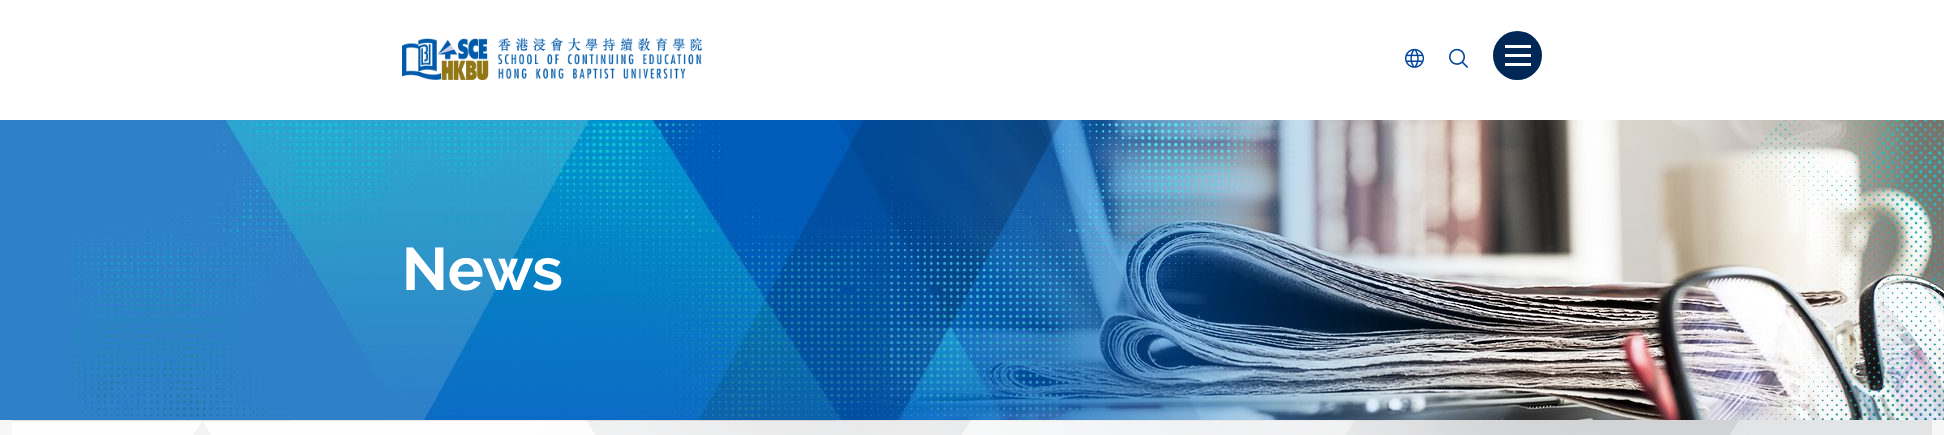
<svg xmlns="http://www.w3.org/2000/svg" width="1944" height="435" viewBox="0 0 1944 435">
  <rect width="100%" height="100%" fill="#fff"/>
  <image x="402" y="38" width="300" height="42" href="img/1.png"/>
  <image x="1405" y="48" width="19" height="20" href="img/2.png"/>
  <image x="1449" y="48" width="19" height="20" href="img/3.png"/>
  <circle cx="1517.5" cy="55.5" r="24.5" fill="#002756"/>
  <path d="M1505 45h26v3H1505z" fill="#fff"/>
  <path d="M1505 54h26v3H1505z" fill="#fff"/>
  <path d="M1505 63h26v3H1505z" fill="#fff"/>
  <path d="M0 120h71v300H0z" fill="#2e80c9"/>
  <image x="71" y="120" width="1873" height="300" href="img/4.png"/>
  <path d="M0 420h1944v15H0z" fill="#f7f7f7"/>
  <image x="12" y="420" width="1920" height="15" href="img/5.png"/>
  <text x="402" y="290" font-family="Raleway" font-size="60" font-weight="bold" fill="#fff">News</text>
</svg>
